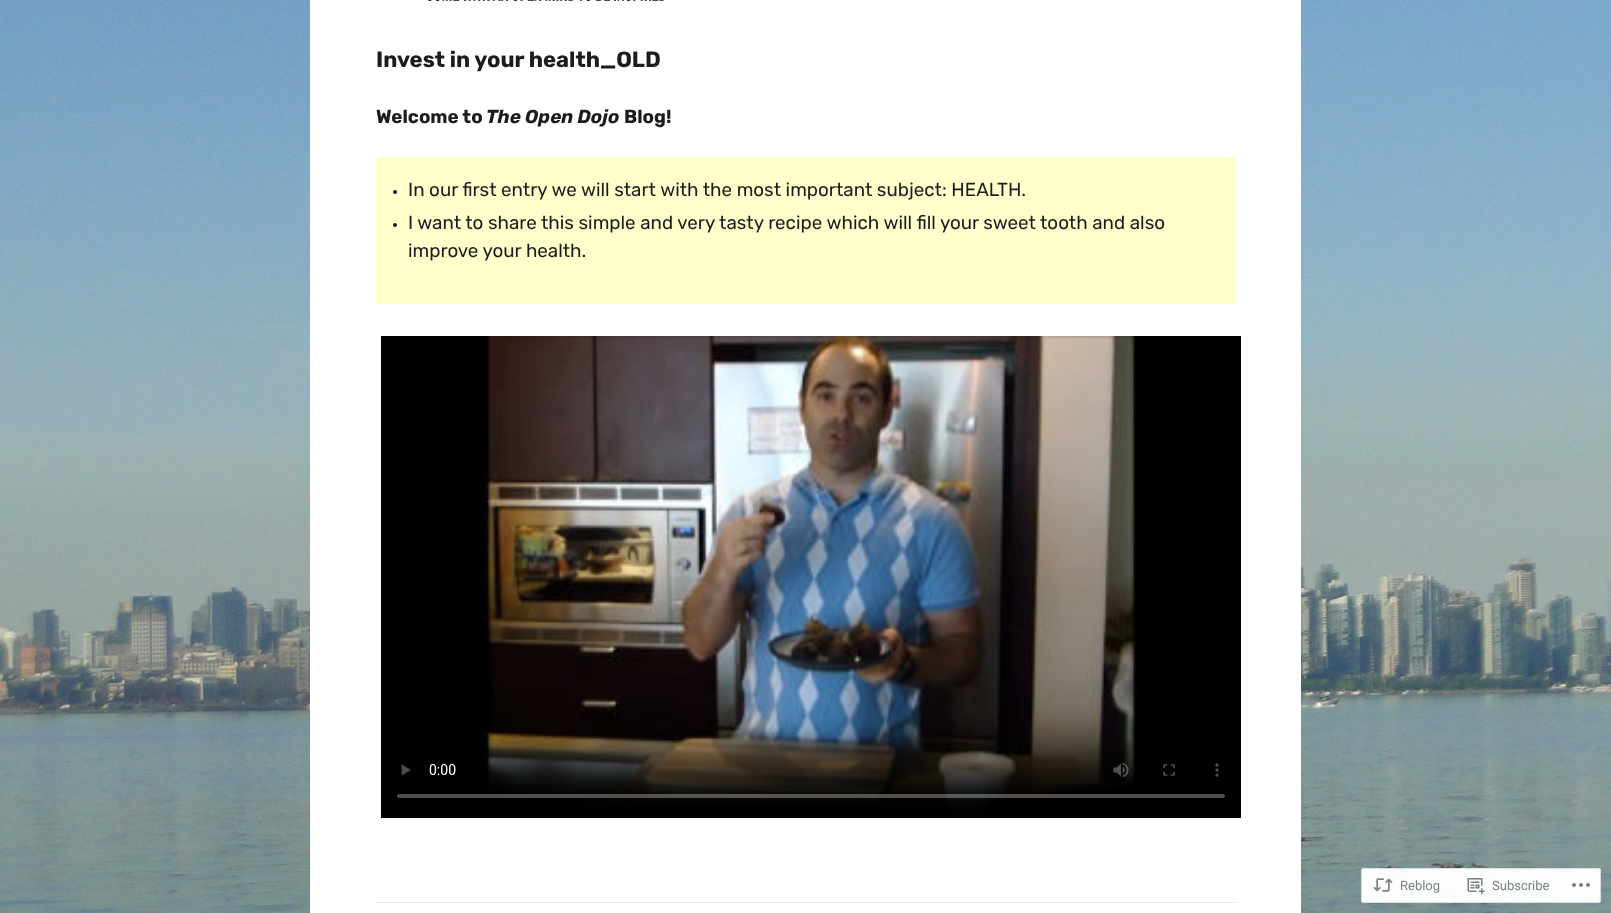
<svg xmlns="http://www.w3.org/2000/svg" width="1611" height="913" viewBox="0 0 1611 913">
  <rect width="100%" height="100%" fill="#fff"/>
  <image x="0" y="0" width="1611" height="913" href="img/1.png"/>
  <path d="M310 0h991v913H310z" fill="#fff"/>
  <image x="428" y="0" width="237" height="1" href="img/2.png"/>
  <path d="M376 157h860v147H376z" fill="#ffc"/>
  <circle cx="395" cy="192" r="2" fill="#1c1c1c"/>
  <circle cx="395" cy="225" r="2" fill="#1c1c1c"/>
  <image x="381" y="336" width="860" height="482" href="img/3.png"/>
  <path d="M376 902h860v1H376z" fill="#e5e5e5"/>
  <rect x="1361" y="868" width="240" height="35" rx="3" fill="#fffffffa"/>
  <rect x="1361.5" y="868.5" width="239" height="34" rx="2.5" fill="none" stroke="#dcdcdefa"/>
  <image x="1373" y="878" width="20" height="14" href="img/4.png"/>
  <image x="1467" y="878" width="18" height="17" href="img/5.png"/>
  <image x="1572" y="883" width="18" height="4" href="img/6.png"/>
  <text x="376" y="67" font-family="Rubik" font-size="22" font-weight="bold" fill="#1c1c1c">Invest in your health_OLD</text>
  <text x="376" y="123" font-family="Rubik" font-size="18.8" font-weight="bold" fill="#1c1c1c">Welcome to</text>
  <text x="486" y="123" font-family="Rubik" font-size="18.8" font-weight="bold" font-style="italic" fill="#1c1c1c">The Open Dojo</text>
  <text x="624" y="123" font-family="Rubik" font-size="18.8" font-weight="bold" fill="#1c1c1c">Blog!</text>
  <g font-family="Rubik" font-size="18.8" fill="#1c1c1c">
    <text x="408" y="196">In our first entry we will start with the most important subject: HEALTH.</text>
    <text x="408" y="229">I want to share this simple and very tasty recipe which will fill your sweet tooth and also</text>
    <text x="408" y="257">improve your health.</text>
  </g>
  <g font-family="Roboto" font-size="13" fill="#7b7f84">
    <text x="1400" y="890">Reblog</text>
    <text x="1492" y="890">Subscribe</text>
  </g>
</svg>
